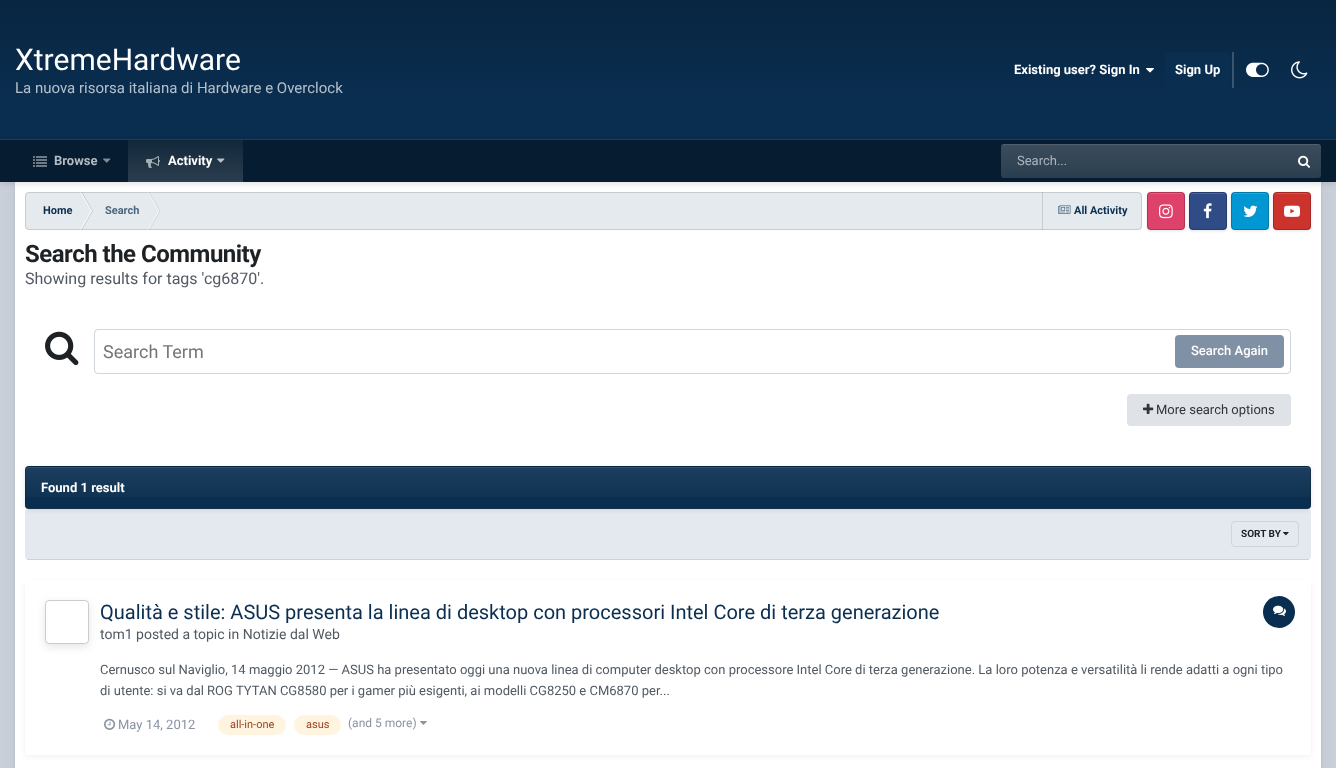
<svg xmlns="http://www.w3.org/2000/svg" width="1336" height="768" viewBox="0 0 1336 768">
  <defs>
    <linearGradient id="g1" gradientUnits="userSpaceOnUse" x1="668" y1="0" x2="668" y2="140"><stop offset="0" stop-color="#082540"/><stop offset="0.7" stop-color="#0a2e50"/></linearGradient>
    <linearGradient id="g2" gradientUnits="userSpaceOnUse" x1="186" y1="140" x2="186" y2="182"><stop offset="0" stop-color="#12273a"/><stop offset="1" stop-color="#2b3e4f"/></linearGradient>
    <linearGradient id="g3" gradientUnits="userSpaceOnUse" x1="1161" y1="144" x2="1161" y2="178"><stop offset="0" stop-color="#fff" stop-opacity="0.08"/><stop offset="1" stop-color="#fff" stop-opacity="0"/></linearGradient>
    <linearGradient id="g4" gradientUnits="userSpaceOnUse" x1="668" y1="467" x2="668" y2="508"><stop offset="0" stop-color="#fff" stop-opacity="0.08"/><stop offset="1" stop-color="#fff" stop-opacity="0"/></linearGradient>
    <clipPath id="clip1"><rect x="25" y="466" width="1286" height="43" rx="4"/></clipPath>
    <linearGradient id="g5" gradientUnits="userSpaceOnUse" x1="668" y1="508" x2="668" y2="549"><stop offset="0" stop-color="#fff" stop-opacity="0.08"/><stop offset="1" stop-color="#fff" stop-opacity="0"/></linearGradient>
    <clipPath id="clip2"><path d="M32 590H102V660H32ZM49 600H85C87 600 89 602 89 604V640C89 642 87 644 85 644H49C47 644 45 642 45 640V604C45 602 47 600 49 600Z" clip-rule="evenodd"/></clipPath>
  </defs>
  <rect width="100%" height="100%" fill="#cbd1da"/>
  <path d="M0 0h1336v139H0z" fill="url(#g1)"/>
  <image x="1146" y="68" width="8" height="5" href="img/1.png"/>
  <rect x="1165" y="52" width="65" height="36" rx="4" fill="#0a2e50"/>
  <path d="M1232 52h2v36H1232z" fill="#ffffff33"/>
  <image x="1246" y="62" width="23" height="15" href="img/2.png"/>
  <image x="1291" y="61" width="17" height="18" href="img/3.png"/>
  <rect x="15" y="183" width="1306" height="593" rx="3" fill="#00000014" filter="blur(1.5px)"/>
  <rect x="15" y="182" width="1306" height="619" rx="3" fill="#0000000f" filter="blur(10px)"/>
  <path d="M15 182h1306v586H15z" fill="#fff"/>
  <rect x="25" y="192" width="1117" height="38" rx="4" fill="#e4eaee"/>
  <path d="M80 192H81L92 211H91Z" fill="#fff"/>
  <path d="M81 192H82L93 211H92Z" fill="#51596333"/>
  <path d="M80 230H81L92 211H91Z" fill="#fff"/>
  <path d="M81 230H82L93 211H92Z" fill="#51596333"/>
  <path d="M147.5 192H148.5L159.5 211H158.5Z" fill="#f7f9fa"/>
  <path d="M148.5 192H149.5L160.5 211H159.5Z" fill="#7d858d33"/>
  <path d="M147.5 230H148.5L159.5 211H158.5Z" fill="#f7f9fa"/>
  <path d="M148.5 230H149.5L160.5 211H159.5Z" fill="#7d858d33"/>
  <path d="M1042 192h1v38H1042z" fill="#c7cdd2"/>
  <image x="1058" y="205" width="13" height="9" href="img/9.png"/>
  <rect x="25.5" y="192.5" width="1116" height="37" rx="3.5" fill="none" stroke="#51596333"/>
  <rect x="1147" y="193" width="38" height="38" rx="4" fill="#0000001a" filter="blur(1.5px)"/>
  <rect x="1147" y="192" width="38" height="38" rx="4" fill="#de416a"/>
  <path d="M1151 194C1149 194 1148 195 1148 197C1148 192 1152 193 1156 193H1176C1180 193 1184 192 1184 197C1184 195 1183 194 1181 194Z" fill="#e35e80"/>
  <image x="1159" y="204" width="14" height="15" href="img/10.png"/>
  <rect x="1147.5" y="192.5" width="37" height="37" rx="3.5" fill="none" stroke="#00000033"/>
  <rect x="1189" y="193" width="38" height="38" rx="4" fill="#0000001a" filter="blur(1.5px)"/>
  <rect x="1189" y="192" width="38" height="38" rx="4" fill="#304c87"/>
  <path d="M1193 194C1191 194 1190 195 1190 197C1190 192 1194 193 1198 193H1218C1222 193 1226 192 1226 197C1226 195 1225 194 1223 194Z" fill="#4f6799"/>
  <image x="1203" y="203" width="9" height="16" href="img/11.png"/>
  <rect x="1189.5" y="192.5" width="37" height="37" rx="3.5" fill="none" stroke="#00000033"/>
  <rect x="1231" y="193" width="38" height="38" rx="4" fill="#0000001a" filter="blur(1.5px)"/>
  <rect x="1231" y="192" width="38" height="38" rx="4" fill="#0097d3"/>
  <path d="M1235 194C1233 194 1232 195 1232 197C1232 192 1236 193 1240 193H1260C1264 193 1268 192 1268 197C1268 195 1267 194 1265 194Z" fill="#26a7da"/>
  <image x="1243" y="205" width="15" height="12" href="img/12.png"/>
  <rect x="1231.5" y="192.5" width="37" height="37" rx="3.5" fill="none" stroke="#00000033"/>
  <rect x="1273" y="193" width="38" height="38" rx="4" fill="#0000001a" filter="blur(1.5px)"/>
  <rect x="1273" y="192" width="38" height="38" rx="4" fill="#cc332d"/>
  <path d="M1277 194C1275 194 1274 195 1274 197C1274 192 1278 193 1282 193H1302C1306 193 1310 192 1310 197C1310 195 1309 194 1307 194Z" fill="#d4524d"/>
  <image x="1284" y="205" width="16" height="12" href="img/13.png"/>
  <rect x="1273.5" y="192.5" width="37" height="37" rx="3.5" fill="none" stroke="#00000033"/>
  <path d="M0 141h1336v42H0z" fill="#00000026" filter="blur(3.5px)"/>
  <path d="M0 139h1336v1H0z" fill="#1d3d5a"/>
  <path d="M0 140h1336v42H0z" fill="#061c30"/>
  <image x="33" y="156" width="14" height="11" href="img/4.png"/>
  <image x="103" y="158" width="8" height="5" href="img/5.png"/>
  <path d="M128 140h115v42H128z" fill="url(#g2)"/>
  <image x="146" y="156" width="14" height="12" href="img/6.png"/>
  <image x="217" y="158" width="8" height="5" href="img/7.png"/>
  <rect x="1001" y="144" width="320" height="34" rx="3" fill="#2b3e4f"/>
  <rect x="1001" y="144" width="320" height="34" rx="3" fill="url(#g3)"/>
  <path d="M1004 145H1318C1320 145 1321 146 1321 148L1320 145L1319 144H1004C1002 144 1001 146 1001 148C1001 146 1002 145 1004 145Z" fill="#ffffff1a"/>
  <image x="1298" y="155" width="12" height="13" href="img/8.png"/>
  <image x="45" y="331" width="34" height="35" href="img/14.png"/>
  <rect x="94.5" y="329.5" width="1196" height="44" rx="3.5" fill="none" stroke="#d0d4db"/>
  <rect x="1175" y="335" width="109" height="33" rx="4" fill="#8191a5"/>
  <rect x="1127" y="394" width="164" height="32" rx="4" fill="#dfe3e8"/>
  <image x="1143" y="403" width="11" height="11" href="img/15.png"/>
  <rect x="25" y="509" width="1286" height="51" rx="4" fill="#e4e9f0"/>
  <rect x="25" y="467" width="1286" height="43" rx="4" fill="#0000001a" filter="blur(2px)"/>
  <rect x="25" y="466" width="1286" height="43" rx="4" fill="#0a2e50"/>
  <path d="M25 467h1286v30H25z" fill="url(#g4)"/>
  <g clip-path="url(#clip1)">
    <path d="M25 508h1286v1H25z" fill="url(#g5)"/>
  </g>
  <path d="M29 468H1307C1309 468 1310 469 1310 471V470C1310 468 1309 467 1307 467H29C27 467 26 468 26 470V471C26 469 27 468 29 468Z" fill="#34526e"/>
  <rect x="25.5" y="466.5" width="1285" height="42" rx="3.5" fill="none" stroke="#00000033"/>
  <path d="M27 559h1282v1H27z" fill="#51596326"/>
  <image x="1283" y="532" width="6" height="4" href="img/16.png"/>
  <rect x="1231.5" y="521.5" width="67" height="25" rx="3.5" fill="none" stroke="#d0d5dc"/>
  <rect x="25" y="582" width="1286" height="175" rx="4" fill="#0000000d" filter="blur(2.5px)"/>
  <rect x="25" y="580" width="1286" height="175" rx="4" fill="#fff"/>
  <g clip-path="url(#clip2)">
    <rect x="45" y="603" width="44" height="44" rx="4" fill="#0000001a" filter="blur(4px)"/>
  </g>
  <rect x="45.5" y="600.5" width="43" height="43" rx="3.5" fill="none" stroke="#5159634d"/>
  <circle cx="1279" cy="612" r="16" fill="#0a2e50"/>
  <image x="1273" y="605" width="13" height="11" href="img/17.png"/>
  <image x="104" y="718" width="12" height="12" href="img/18.png"/>
  <rect x="218" y="715" width="68" height="20" rx="10" fill="#fff4df"/>
  <rect x="294" y="715" width="47" height="20" rx="10" fill="#fff4df"/>
  <image x="420" y="721" width="7" height="4" href="img/19.png"/>
  <text x="15" y="70" font-family="Roboto" font-size="30" fill="#fff">XtremeHardware</text>
  <text x="15" y="93" font-family="Roboto" font-size="15" fill="#b6c0ca">La nuova risorsa italiana di Hardware e Overclock</text>
  <g font-family="Roboto" font-size="13" font-weight="bold" fill="#fff">
    <text x="1014" y="74">Existing user? Sign In</text>
    <text x="1175" y="74">Sign Up</text>
  </g>
  <text x="54" y="165" font-family="Roboto" font-size="13" font-weight="bold" fill="#b4bbc1">Browse</text>
  <text x="168" y="165" font-family="Roboto" font-size="13" font-weight="bold" fill="#fff">Activity</text>
  <text x="1017" y="165" font-family="Roboto" font-size="13" fill="#aeb5bb">Search...</text>
  <text x="43" y="214" font-family="Roboto" font-size="11" font-weight="bold" fill="#0a2e50">Home</text>
  <text x="105" y="214" font-family="Roboto" font-size="11" font-weight="bold" fill="#4b667f">Search</text>
  <text x="1074" y="214" font-family="Roboto" font-size="11" font-weight="bold" fill="#0a2e50">All Activity</text>
  <text x="25" y="262" font-family="Roboto" font-size="24" font-weight="bold" letter-spacing="-0.5" fill="#1e2225">Search the Community</text>
  <text x="25" y="284" font-family="Roboto" font-size="16" fill="#515963">Showing results for tags 'cg6870'.</text>
  <text x="103" y="358" font-family="Roboto" font-size="18" fill="#757575">Search Term</text>
  <text x="1191" y="355" font-family="Roboto" font-size="13" font-weight="500" fill="#fff">Search Again</text>
  <text x="1156" y="414" font-family="Roboto" font-size="13" fill="#333">More search options</text>
  <text x="41" y="492" font-family="Roboto" font-size="13" font-weight="bold" fill="#fff">Found 1 result</text>
  <text x="1241" y="537" font-family="Roboto" font-size="10" font-weight="bold" fill="#1e2225">SORT BY</text>
  <text x="100" y="619" font-family="Roboto" font-size="20" fill="#0a2e50">Qualità e stile: ASUS presenta la linea di desktop con processori Intel Core di terza generazione</text>
  <text x="100" y="639" font-family="Roboto" font-size="14" fill="#515963">tom1 posted a topic in Notizie dal Web</text>
  <g font-family="Roboto" font-size="13" fill="#515963">
    <text x="100" y="674">Cernusco sul Naviglio, 14 maggio 2012 — ASUS ha presentato oggi una nuova linea di computer desktop con processore Intel Core di terza generazione. La loro potenza e versatilità li rende adatti a ogni tipo</text>
    <text x="100" y="695">di utente: si va dal ROG TYTAN CG8580 per i gamer più esigenti, ai modelli CG8250 e CM6870 per...</text>
  </g>
  <text x="118" y="729" font-family="Roboto" font-size="13" fill="#8a93a4">May 14, 2012</text>
  <g font-family="Roboto" font-size="11" fill="#9c4221">
    <text x="230" y="728">all-in-one</text>
    <text x="306" y="728">asus</text>
  </g>
  <text x="348" y="727" font-family="Roboto" font-size="12" fill="#8a93a4">(and 5 more)</text>
</svg>
